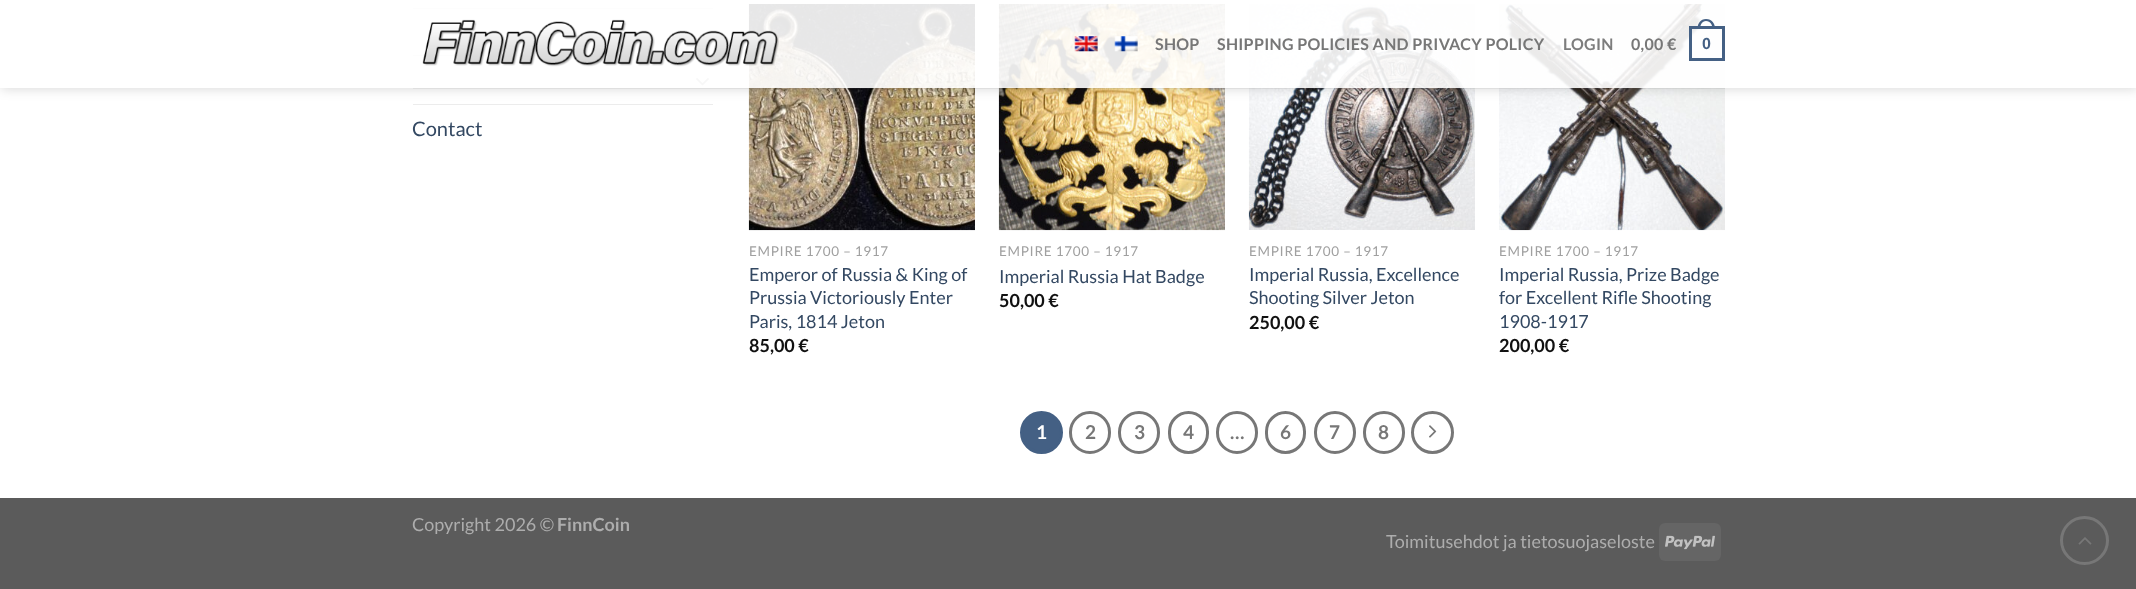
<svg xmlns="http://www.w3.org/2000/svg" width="2136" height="589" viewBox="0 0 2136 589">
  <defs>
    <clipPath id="clip1"><path d="M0 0H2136V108H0ZM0 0H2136V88H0Z" clip-rule="evenodd"/></clipPath>
  </defs>
  <rect width="100%" height="100%" fill="#fff"/>
  <path d="M413 8h300v1H413z" fill="#ececec"/>
  <path d="M413 55h300v1H413z" fill="#ececec"/>
  <image x="696" y="78" width="13" height="8" href="img/4.png"/>
  <path d="M413 104h300v1H413z" fill="#ececec"/>
  <image x="748" y="4" width="227" height="227" href="img/5.png"/>
  <image x="998" y="4" width="227" height="227" href="img/6.png"/>
  <image x="1248" y="4" width="227" height="226" href="img/7.png"/>
  <image x="1499" y="4" width="226" height="227" href="img/8.png"/>
  <g clip-path="url(#clip1)">
    <path d="M1 1h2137v88H1z" fill="#00000026" filter="blur(6px)"/>
  </g>
  <path d="M0 4h2136v84H0z" fill="#ffffffe6"/>
  <image x="422" y="19" width="357" height="48" href="img/1.png"/>
  <image x="1074" y="36" width="24" height="16" href="img/2.png"/>
  <image x="1114" y="36" width="24" height="16" href="img/3.png"/>
  <path d="M1690.5 27.5h33v32H1690.5z" fill="none" stroke="#446084" stroke-width="3"/>
  <path d="M1706 19C1712 19 1715 23.5 1715 29H1697.5C1697.5 23.5 1700.5 19 1706 19ZM1706 21C1710.5 21 1712.5 25 1712.5 29H1700C1700 25 1702 21 1706 21Z" fill="#446084" fill-rule="evenodd"/>
  <path d="M413 88h1312v1H413z" fill="#7777771a"/>
  <circle cx="1041.5" cy="432.5" r="20" fill="#446084" stroke="#446084" stroke-width="3"/>
  <rect x="1070.5" y="412.5" width="39" height="40" rx="19.5" fill="none" stroke="#777" stroke-width="3"/>
  <rect x="1119.5" y="412.5" width="39" height="40" rx="19.5" fill="none" stroke="#777" stroke-width="3"/>
  <rect x="1169.5" y="412.5" width="38" height="40" rx="19" fill="none" stroke="#777" stroke-width="3"/>
  <rect x="1217.5" y="412.5" width="39" height="40" rx="19.5" fill="none" stroke="#777" stroke-width="3"/>
  <rect x="1266.5" y="412.5" width="38" height="40" rx="19" fill="none" stroke="#777" stroke-width="3"/>
  <rect x="1315.5" y="412.5" width="39" height="40" rx="19.5" fill="none" stroke="#777" stroke-width="3"/>
  <rect x="1364.5" y="412.5" width="39" height="40" rx="19.5" fill="none" stroke="#777" stroke-width="3"/>
  <circle cx="1432.5" cy="432.5" r="20" fill="none" stroke="#777" stroke-width="3"/>
  <image x="1429" y="425" width="8" height="13" href="img/9.png"/>
  <path d="M0 498h2136v91H0z" fill="#5b5b5b"/>
  <rect x="1659" y="523" width="62" height="38" rx="6" fill="#656565"/>
  <image x="1665" y="535" width="50" height="15" href="img/10.png"/>
  <circle cx="2084.5" cy="540.5" r="23" fill="none" stroke="#777" stroke-width="3"/>
  <image x="2078" y="537" width="14" height="8" href="img/11.png"/>
  <g font-family="Lato" font-size="16" font-weight="bold" letter-spacing="0.3" fill="#777">
    <text x="1155" y="50">SHOP</text>
    <text x="1217" y="50">SHIPPING POLICIES AND PRIVACY POLICY</text>
  </g>
  <text x="1563" y="50" font-family="Lato" font-size="16" font-weight="bold" letter-spacing="0.3" fill="#7d7d7d">LOGIN</text>
  <g font-family="Lato" font-size="16" font-weight="bold" letter-spacing="0.3" fill="#777">
    <text x="1631" y="50">0,00</text>
    <text x="1667" y="50">€</text>
  </g>
  <text x="1702" y="49" font-family="Liberation Sans" font-size="16" font-weight="bold" letter-spacing="0.3" fill="#446084">0</text>
  <text x="412" y="136" font-family="Lato" font-size="20" fill="#334862">Contact</text>
  <text x="749" y="256" font-family="Lato" font-size="13.5" letter-spacing="0.7" fill="#a0a0a0">EMPIRE 1700 – 1917</text>
  <g font-family="Lato" font-size="18" fill="#334862">
    <text x="749" y="281">Emperor of Russia &amp; King of</text>
    <text x="749" y="304">Prussia Victoriously Enter</text>
    <text x="749" y="328">Paris, 1814 Jeton</text>
  </g>
  <text x="749" y="352" font-family="Lato" font-size="18" font-weight="bold" fill="#111">85,00 €</text>
  <text x="999" y="256" font-family="Lato" font-size="13.5" letter-spacing="0.7" fill="#a0a0a0">EMPIRE 1700 – 1917</text>
  <text x="999" y="283" font-family="Lato" font-size="18" fill="#334862">Imperial Russia Hat Badge</text>
  <text x="999" y="307" font-family="Lato" font-size="18" font-weight="bold" fill="#111">50,00 €</text>
  <text x="1249" y="256" font-family="Lato" font-size="13.5" letter-spacing="0.7" fill="#a0a0a0">EMPIRE 1700 – 1917</text>
  <g font-family="Lato" font-size="18" fill="#334862">
    <text x="1249" y="281">Imperial Russia, Excellence</text>
    <text x="1249" y="304">Shooting Silver Jeton</text>
  </g>
  <text x="1249" y="329" font-family="Lato" font-size="18" font-weight="bold" fill="#111">250,00 €</text>
  <text x="1499" y="256" font-family="Lato" font-size="13.5" letter-spacing="0.7" fill="#a0a0a0">EMPIRE 1700 – 1917</text>
  <g font-family="Lato" font-size="18" fill="#334862">
    <text x="1499" y="281">Imperial Russia, Prize Badge</text>
    <text x="1499" y="304">for Excellent Rifle Shooting</text>
    <text x="1499" y="328">1908-1917</text>
  </g>
  <text x="1499" y="352" font-family="Lato" font-size="18" font-weight="bold" fill="#111">200,00 €</text>
  <text x="1036" y="439" font-family="Lato" font-size="19" font-weight="bold" fill="#fff">1</text>
  <g font-family="Lato" font-size="19" font-weight="bold" fill="#777">
    <text x="1085" y="439">2</text>
    <text x="1134" y="439">3</text>
    <text x="1183" y="439">4</text>
    <text x="1230" y="439">…</text>
    <text x="1280" y="439">6</text>
    <text x="1329" y="439">7</text>
    <text x="1378" y="439">8</text>
  </g>
  <text x="412" y="531" font-family="Lato" font-size="18" fill="#adadad">Copyright 2026 ©</text>
  <text x="557" y="531" font-family="Lato" font-size="18" font-weight="bold" fill="#adadad">FinnCoin</text>
  <text x="1386" y="548" font-family="Lato" font-size="18" fill="#adadad">Toimitusehdot ja tietosuojaseloste</text>
</svg>
